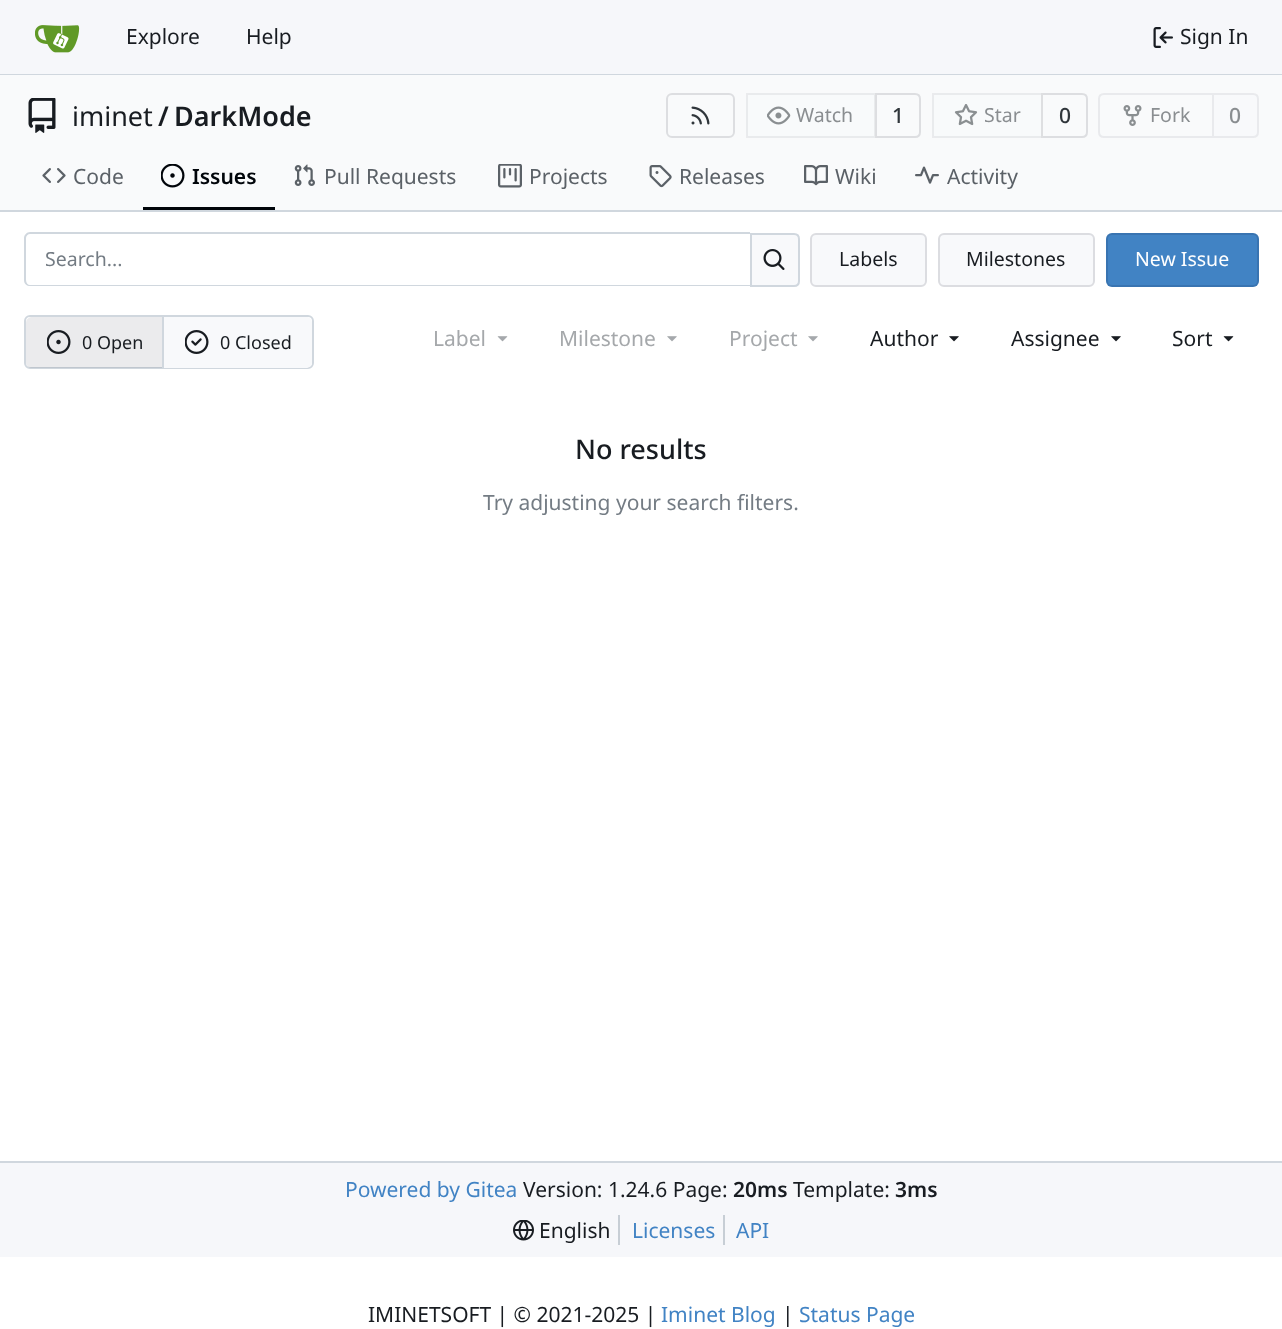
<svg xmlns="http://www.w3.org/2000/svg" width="1282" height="1329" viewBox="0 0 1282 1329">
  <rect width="100%" height="100%" fill="#fff"/>
  <path d="M0 0h1282v74H0z" fill="#f6f7fa"/>
  <path d="M0 74h1282v1H0z" fill="#d0d7de"/>
  <image x="35" y="25" width="45" height="28" href="img/1.png"/>
  <image x="1153" y="27" width="20" height="21" href="img/2.png"/>
  <path d="M0 75h1282v135H0z" fill="#f9fafb"/>
  <image x="28" y="98" width="28" height="35" href="img/3.png"/>
  <rect x="667" y="94" width="67" height="43" rx="5" fill="none" stroke="#dddee1" stroke-width="2"/>
  <image x="691" y="106" width="19" height="19" href="img/4.png"/>
  <path d="M876 94H915C918 94 920 96 920 99V132C920 135 918 137 915 137H876Z" fill="none" stroke="#dddee1" stroke-width="2"/>
  <path d="M752 93H876V138H752C748.5 138 746 135.5 746 132V99C746 95.5 748.5 93 752 93Z" fill="#f8f9fb8c"/>
  <path d="M747 94h128v43H747z" fill="none" stroke="#0000170f" stroke-width="2"/>
  <image x="767" y="106" width="24" height="19" href="img/5.png"/>
  <path d="M1042 94H1082C1085 94 1087 96 1087 99V132C1087 135 1085 137 1082 137H1042Z" fill="none" stroke="#dddee1" stroke-width="2"/>
  <path d="M938 93H1043V138H938C934.5 138 932 135.5 932 132V99C932 95.5 934.5 93 938 93Z" fill="#f8f9fb8c"/>
  <path d="M933 94h109v43H933z" fill="none" stroke="#0000170f" stroke-width="2"/>
  <image x="954" y="104" width="24" height="22" href="img/6.png"/>
  <path d="M1104 94H1213V137H1104C1101 137 1099 135 1099 132V99C1099 96 1101 94 1104 94Z" fill="none" stroke="#e9eaed" stroke-width="2"/>
  <image x="1123" y="105" width="19" height="21" href="img/7.png"/>
  <path d="M1213 94H1253C1256 94 1258 96 1258 99V132C1258 135 1256 137 1253 137H1213Z" fill="#f8f9fb" stroke="#e9eaed" stroke-width="2"/>
  <image x="42" y="168" width="24" height="15" href="img/8.png"/>
  <path d="M143 207h132v3H143z" fill="#01050a"/>
  <image x="161" y="164" width="24" height="24" href="img/9.png"/>
  <image x="294" y="164" width="21" height="22" href="img/10.png"/>
  <image x="498" y="164" width="24" height="24" href="img/11.png"/>
  <image x="649" y="165" width="23" height="23" href="img/12.png"/>
  <image x="804" y="165" width="24" height="21" href="img/13.png"/>
  <image x="915" y="166" width="24" height="18" href="img/14.png"/>
  <path d="M0 210h1282v2H0z" fill="#d0d7de"/>
  <path d="M30 232H750V286H30C27 286 24 284 24 280V238C24 235 27 232 30 232ZM30 234H750V285H30C28 285 26 283 26 280V238C26 236 28 234 30 234Z" fill="#d0d7de" fill-rule="evenodd"/>
  <path d="M751 234H794C797 234 799 236 799 239V281C799 284 797 286 794 286H751Z" fill="#f8f9fb" stroke="#d0d7de" stroke-width="2"/>
  <image x="763" y="249" width="22" height="21" href="img/15.png"/>
  <rect x="811" y="234" width="115" height="52" rx="5" fill="#f8f9fb" stroke="#dcdde1" stroke-width="2"/>
  <rect x="939" y="234" width="155" height="52" rx="5" fill="#f8f9fb" stroke="#dcdde1" stroke-width="2"/>
  <rect x="1106" y="233" width="153" height="54" rx="6" fill="#4183c4"/>
  <rect x="1107" y="234" width="151" height="52" rx="5" fill="none" stroke="#0000171c" stroke-width="2"/>
  <rect x="25" y="316" width="288" height="52" rx="5" fill="none" stroke="#d0d7de" stroke-width="2"/>
  <path d="M32 317H164V368H32C28.5 368 26 365.5 26 362V323C26 319.5 28.5 317 32 317Z" fill="#00001714"/>
  <image x="47" y="330" width="24" height="24" href="img/16.png"/>
  <path d="M162 317h2v51H162z" fill="#d0d7de"/>
  <path d="M164 317H306C309.5 317 312 319.5 312 323V362C312 365.5 309.5 368 306 368H164Z" fill="#f8f9fb"/>
  <image x="185" y="330" width="24" height="24" href="img/17.png"/>
  <image x="497" y="336" width="11" height="6" href="img/18.png"/>
  <image x="667" y="336" width="10" height="6" href="img/19.png"/>
  <image x="808" y="336" width="10" height="6" href="img/19.png"/>
  <image x="949" y="336" width="10" height="6" href="img/20.png"/>
  <image x="1111" y="336" width="10" height="6" href="img/20.png"/>
  <image x="1223" y="336" width="11" height="6" href="img/21.png"/>
  <path d="M0 1163h1282v94H0z" fill="#f6f7fa"/>
  <path d="M0 1161h1282v2H0z" fill="#d0d7de"/>
  <image x="513" y="1220" width="21" height="21" href="img/22.png"/>
  <path d="M618 1215h2v30H618z" fill="#c7ced5"/>
  <path d="M723 1215h2v30H723z" fill="#c7ced5"/>
  <g font-family="Noto Sans" font-size="21" fill="#181c21">
    <text x="126" y="44">Explore</text>
    <text x="246" y="44">Help</text>
    <text x="1180" y="44">Sign In</text>
  </g>
  <text x="72" y="126" font-family="Noto Sans" font-size="27" fill="#181c21">iminet</text>
  <g font-family="Noto Sans" font-size="27" font-weight="600" fill="#181c21">
    <text x="158" y="126">/</text>
    <text x="174" y="126">DarkMode</text>
  </g>
  <text x="796" y="122" font-family="Noto Sans" font-size="19.5" fill="#8a8e91">Watch</text>
  <text x="892" y="123" font-family="Noto Sans" font-size="21" font-weight="500" fill="#30363b">1</text>
  <text x="984" y="122" font-family="Noto Sans" font-size="19.5" fill="#8a8e91">Star</text>
  <text x="1059" y="123" font-family="Noto Sans" font-size="21" font-weight="500" fill="#30363b">0</text>
  <text x="1150" y="122" font-family="Noto Sans" font-size="19.5" fill="#8a8e91">Fork</text>
  <text x="1229" y="123" font-family="Noto Sans" font-size="21" font-weight="500" fill="#8a8e91">0</text>
  <text x="73" y="184" font-family="Noto Sans" font-size="21" fill="#5b6167">Code</text>
  <text x="192" y="184" font-family="Noto Sans" font-size="21" font-weight="600" fill="#01050a">Issues</text>
  <g font-family="Noto Sans" font-size="21" fill="#5b6167">
    <text x="324" y="184">Pull Requests</text>
    <text x="529" y="184">Projects</text>
    <text x="679" y="184">Releases</text>
    <text x="835" y="184">Wiki</text>
    <text x="947" y="184">Activity</text>
  </g>
  <text x="45" y="266" font-family="Noto Sans" font-size="19.5" fill="#747c84">Search...</text>
  <g font-family="Noto Sans" font-size="19.5" fill="#181c21">
    <text x="839" y="266">Labels</text>
    <text x="966" y="266">Milestones</text>
  </g>
  <text x="1135" y="266" font-family="Noto Sans" font-size="19.5" fill="#fff">New Issue</text>
  <g font-family="Noto Sans" font-size="18" fill="#181c21">
    <text x="82" y="349">0 Open</text>
    <text x="220" y="349">0 Closed</text>
  </g>
  <g font-family="Noto Sans" font-size="21" fill="#a5a8ab">
    <text x="433" y="346">Label</text>
    <text x="559" y="346">Milestone</text>
    <text x="729" y="346">Project</text>
  </g>
  <g font-family="Noto Sans" font-size="21" fill="#181c21">
    <text x="870" y="346">Author</text>
    <text x="1011" y="346">Assignee</text>
    <text x="1172" y="346">Sort</text>
  </g>
  <text x="575" y="459" font-family="Noto Sans" font-size="27" font-weight="500" fill="#181c21">No results</text>
  <text x="483" y="510" font-family="Noto Sans" font-size="21" fill="#747c84">Try adjusting your search filters.</text>
  <text x="345" y="1197" font-family="Noto Sans" font-size="21" fill="#4183c4">Powered by Gitea</text>
  <text x="523" y="1197" font-family="Noto Sans" font-size="21" fill="#181c21">Version: 1.24.6 Page:</text>
  <text x="733" y="1197" font-family="Noto Sans" font-size="21" font-weight="600" fill="#181c21">20ms</text>
  <text x="793" y="1197" font-family="Noto Sans" font-size="21" fill="#181c21">Template:</text>
  <text x="895" y="1197" font-family="Noto Sans" font-size="21" font-weight="600" fill="#181c21">3ms</text>
  <text x="539" y="1238" font-family="Noto Sans" font-size="21" fill="#181c21">English</text>
  <g font-family="Noto Sans" font-size="21" fill="#4183c4">
    <text x="632" y="1238">Licenses</text>
    <text x="736" y="1238">API</text>
  </g>
  <text x="368" y="1322" font-family="Noto Sans" font-size="21" fill="#181c21">IMINETSOFT | © 2021-2025 |</text>
  <text x="661" y="1322" font-family="Noto Sans" font-size="21" fill="#4183c4">Iminet Blog</text>
  <text x="782" y="1322" font-family="Noto Sans" font-size="21" fill="#181c21">|</text>
  <text x="799" y="1322" font-family="Noto Sans" font-size="21" fill="#4183c4">Status Page</text>
</svg>
